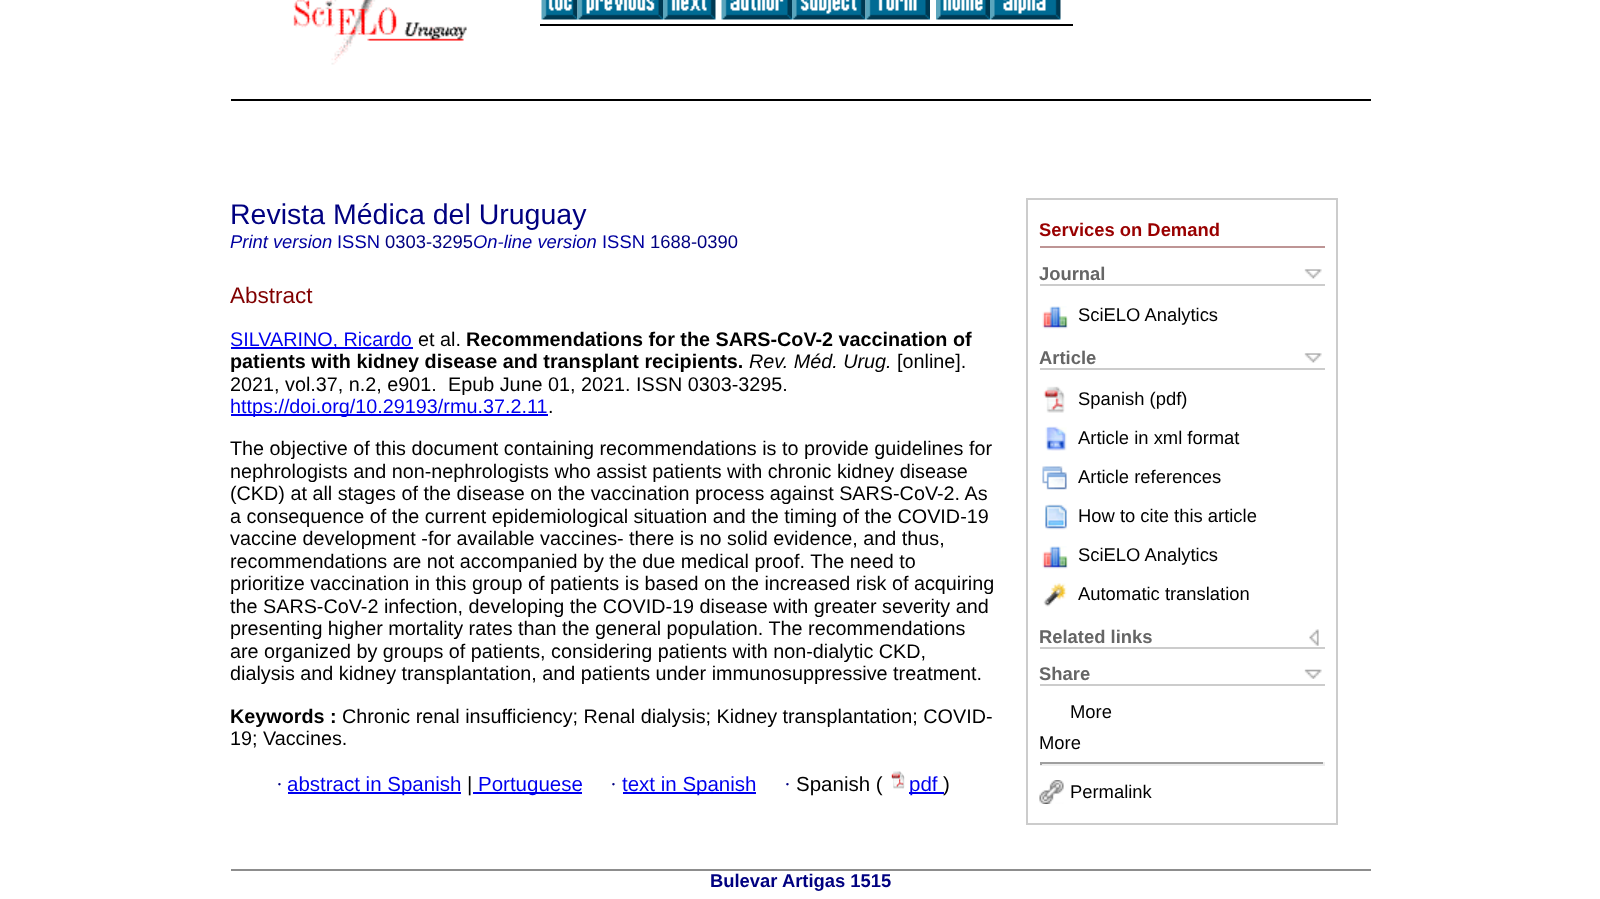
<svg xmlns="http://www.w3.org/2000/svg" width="1600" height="899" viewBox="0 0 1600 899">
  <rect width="100%" height="100%" fill="#fff"/>
  <path d="M231 99h1140v2H231z" fill="#000"/>
  <image x="293" y="0" width="174" height="65" href="img/1.png"/>
  <path d="M540 24h533v2H540z" fill="#000"/>
  <image x="541" y="0" width="37" height="20" href="img/2.png"/>
  <image x="577" y="0" width="86" height="20" href="img/3.png"/>
  <image x="663" y="0" width="53" height="20" href="img/4.png"/>
  <image x="721" y="0" width="71" height="20" href="img/5.png"/>
  <image x="792" y="0" width="74" height="20" href="img/6.png"/>
  <image x="865" y="0" width="65" height="20" href="img/7.png"/>
  <image x="936" y="0" width="54" height="20" href="img/8.png"/>
  <image x="990" y="0" width="71" height="20" href="img/9.png"/>
  <path d="M231 869h1140v2H231z" fill="#8d8d8d"/>
  <path d="M1027 199h310v625H1027z" fill="none" stroke="#ccc" stroke-width="2"/>
  <path d="M1040 246h285v2H1040z" fill="#be9595"/>
  <image x="1304" y="269" width="18" height="10" href="img/10.png"/>
  <path d="M1040 284h285v2H1040z" fill="#ccc"/>
  <image x="1042" y="306" width="26" height="23" href="img/11.png"/>
  <image x="1304" y="353" width="18" height="10" href="img/10.png"/>
  <path d="M1040 368h285v2H1040z" fill="#ccc"/>
  <image x="1043" y="386" width="22" height="27" href="img/12.png"/>
  <image x="1045" y="426" width="22" height="25" href="img/13.png"/>
  <image x="1042" y="466" width="25" height="24" href="img/14.png"/>
  <image x="1045" y="504" width="23" height="26" href="img/15.png"/>
  <image x="1042" y="546" width="26" height="23" href="img/11.png"/>
  <image x="1043" y="583" width="24" height="24" href="img/16.png"/>
  <image x="1309" y="629" width="10" height="17" href="img/17.png"/>
  <path d="M1040 647h285v2H1040z" fill="#ccc"/>
  <image x="1304" y="669" width="18" height="10" href="img/18.png"/>
  <path d="M1040 684h285v2H1040z" fill="#ccc"/>
  <path d="M1040 762h285v2H1040z" fill="#9f9f9f"/>
  <path d="M1323 762h2v3H1323z" fill="#eee"/>
  <path d="M1040 764h285v2H1040z" fill="#eee"/>
  <path d="M1040 762h2v3H1040z" fill="#9f9f9f"/>
  <image x="1039" y="780" width="25" height="24" href="img/19.png"/>
  <path d="M231 347h182v2H231z" fill="#00e"/>
  <path d="M231 414h317v2H231z" fill="#00e"/>
  <path d="M288 792h173v2H288z" fill="#00e"/>
  <path d="M473 792h109v2H473z" fill="#00e"/>
  <path d="M623 792h133v2H623z" fill="#00e"/>
  <image x="891" y="771" width="14" height="18" href="img/20.png"/>
  <path d="M909 792h35v2H909z" fill="#00e"/>
  <text x="230" y="224" font-family="Liberation Sans" font-size="28.5" fill="#000080">Revista Médica del Uruguay</text>
  <text x="230" y="248" font-family="Liberation Sans" font-size="18.4" font-style="italic" fill="#0000a0">Print version</text>
  <text x="337" y="248" font-family="Liberation Sans" font-size="18.4" fill="#0000a0">ISSN</text>
  <text x="385" y="248" font-family="Liberation Sans" font-size="18.4" fill="#000080">0303-3295</text>
  <text x="473" y="248" font-family="Liberation Sans" font-size="18.4" font-style="italic" fill="#0000a0">On-line version</text>
  <text x="602" y="248" font-family="Liberation Sans" font-size="18.4" fill="#0000a0">ISSN</text>
  <text x="650" y="248" font-family="Liberation Sans" font-size="18.4" fill="#000080">1688-0390</text>
  <text x="1039" y="236" font-family="Liberation Sans" font-size="18.4" font-weight="bold" fill="#900">Services on Demand</text>
  <text x="1039" y="280" font-family="Liberation Sans" font-size="18.4" font-weight="bold" fill="#666">Journal</text>
  <text x="1078" y="321" font-family="Liberation Sans" font-size="18.4" fill="#000">SciELO Analytics</text>
  <text x="1039" y="364" font-family="Liberation Sans" font-size="18.4" font-weight="bold" fill="#666">Article</text>
  <g font-family="Liberation Sans" font-size="18.4" fill="#000">
    <text x="1078" y="405">Spanish (pdf)</text>
    <text x="1078" y="444">Article in xml format</text>
    <text x="1078" y="483">Article references</text>
    <text x="1078" y="522">How to cite this article</text>
    <text x="1078" y="561">SciELO Analytics</text>
    <text x="1078" y="600">Automatic translation</text>
  </g>
  <g font-family="Liberation Sans" font-size="18.4" font-weight="bold" fill="#666">
    <text x="1039" y="643">Related links</text>
    <text x="1039" y="680">Share</text>
  </g>
  <g font-family="Liberation Sans" font-size="18.4" fill="#000">
    <text x="1070" y="718">More</text>
    <text x="1039" y="749">More</text>
    <text x="1070" y="798">Permalink</text>
  </g>
  <text x="230" y="303" font-family="Liberation Sans" font-size="22.5" fill="#800000">Abstract</text>
  <text x="230" y="346" font-family="Liberation Sans" font-size="19.8" fill="#00e">SILVARINO, Ricardo</text>
  <text x="418" y="346" font-family="Liberation Sans" font-size="19.8" fill="#000">et al.</text>
  <g font-family="Liberation Sans" font-size="19.8" font-weight="bold" fill="#000">
    <text x="466" y="346">Recommendations for the SARS-CoV-2 vaccination of</text>
    <text x="230" y="368">patients with kidney disease and transplant recipients.</text>
  </g>
  <text x="749" y="368" font-family="Liberation Sans" font-size="19.8" font-style="italic" fill="#000">Rev. Méd. Urug.</text>
  <g font-family="Liberation Sans" font-size="19.8" fill="#000">
    <text x="897" y="368">[online].</text>
    <text x="230" y="391">2021, vol.37, n.2, e901.</text>
    <text x="448" y="391">Epub June 01, 2021. ISSN 0303-3295.</text>
  </g>
  <text x="230" y="413" font-family="Liberation Sans" font-size="19.8" fill="#00e">https://doi.org/10.29193/rmu.37.2.11</text>
  <g font-family="Liberation Sans" font-size="19.8" fill="#000">
    <text x="548" y="413">.</text>
    <text x="230" y="455">The objective of this document containing recommendations is to provide guidelines for</text>
    <text x="230" y="478">nephrologists and non-nephrologists who assist patients with chronic kidney disease</text>
    <text x="230" y="500">(CKD) at all stages of the disease on the vaccination process against SARS-CoV-2. As</text>
    <text x="230" y="523">a consequence of the current epidemiological situation and the timing of the COVID-19</text>
    <text x="230" y="545">vaccine development -for available vaccines- there is no solid evidence, and thus,</text>
    <text x="230" y="568">recommendations are not accompanied by the due medical proof. The need to</text>
    <text x="230" y="590">prioritize vaccination in this group of patients is based on the increased risk of acquiring</text>
    <text x="230" y="613">the SARS-CoV-2 infection, developing the COVID-19 disease with greater severity and</text>
    <text x="230" y="635">presenting higher mortality rates than the general population. The recommendations</text>
    <text x="230" y="658">are organized by groups of patients, considering patients with non-dialytic CKD,</text>
    <text x="230" y="680">dialysis and kidney transplantation, and patients under immunosuppressive treatment.</text>
  </g>
  <text x="230" y="723" font-family="Liberation Sans" font-size="19.8" font-weight="bold" fill="#000">Keywords :</text>
  <g font-family="Liberation Sans" font-size="19.8" fill="#000">
    <text x="342" y="723">Chronic renal insufficiency; Renal dialysis; Kidney transplantation; COVID-</text>
    <text x="230" y="745">19; Vaccines.</text>
  </g>
  <text x="276" y="791" font-family="Liberation Serif" font-size="20.5" fill="#000080">·</text>
  <text x="287" y="791" font-family="Liberation Sans" font-size="20.5" fill="#00e">abstract in Spanish</text>
  <text x="467" y="791" font-family="Liberation Sans" font-size="20.5" fill="#000">|</text>
  <text x="478" y="791" font-family="Liberation Sans" font-size="20.5" fill="#00e">Portuguese</text>
  <text x="610" y="791" font-family="Liberation Serif" font-size="20.5" fill="#000080">·</text>
  <text x="622" y="791" font-family="Liberation Sans" font-size="20.5" fill="#00e">text in Spanish</text>
  <text x="784" y="791" font-family="Liberation Serif" font-size="20.5" fill="#000080">·</text>
  <text x="796" y="791" font-family="Liberation Sans" font-size="20.5" fill="#000">Spanish (</text>
  <text x="909" y="791" font-family="Liberation Sans" font-size="20.5" fill="#00e">pdf</text>
  <text x="943" y="791" font-family="Liberation Sans" font-size="20.5" fill="#000">)</text>
  <text x="710" y="887" font-family="Liberation Sans" font-size="18.4" font-weight="bold" fill="#000080">Bulevar Artigas 1515</text>
</svg>
